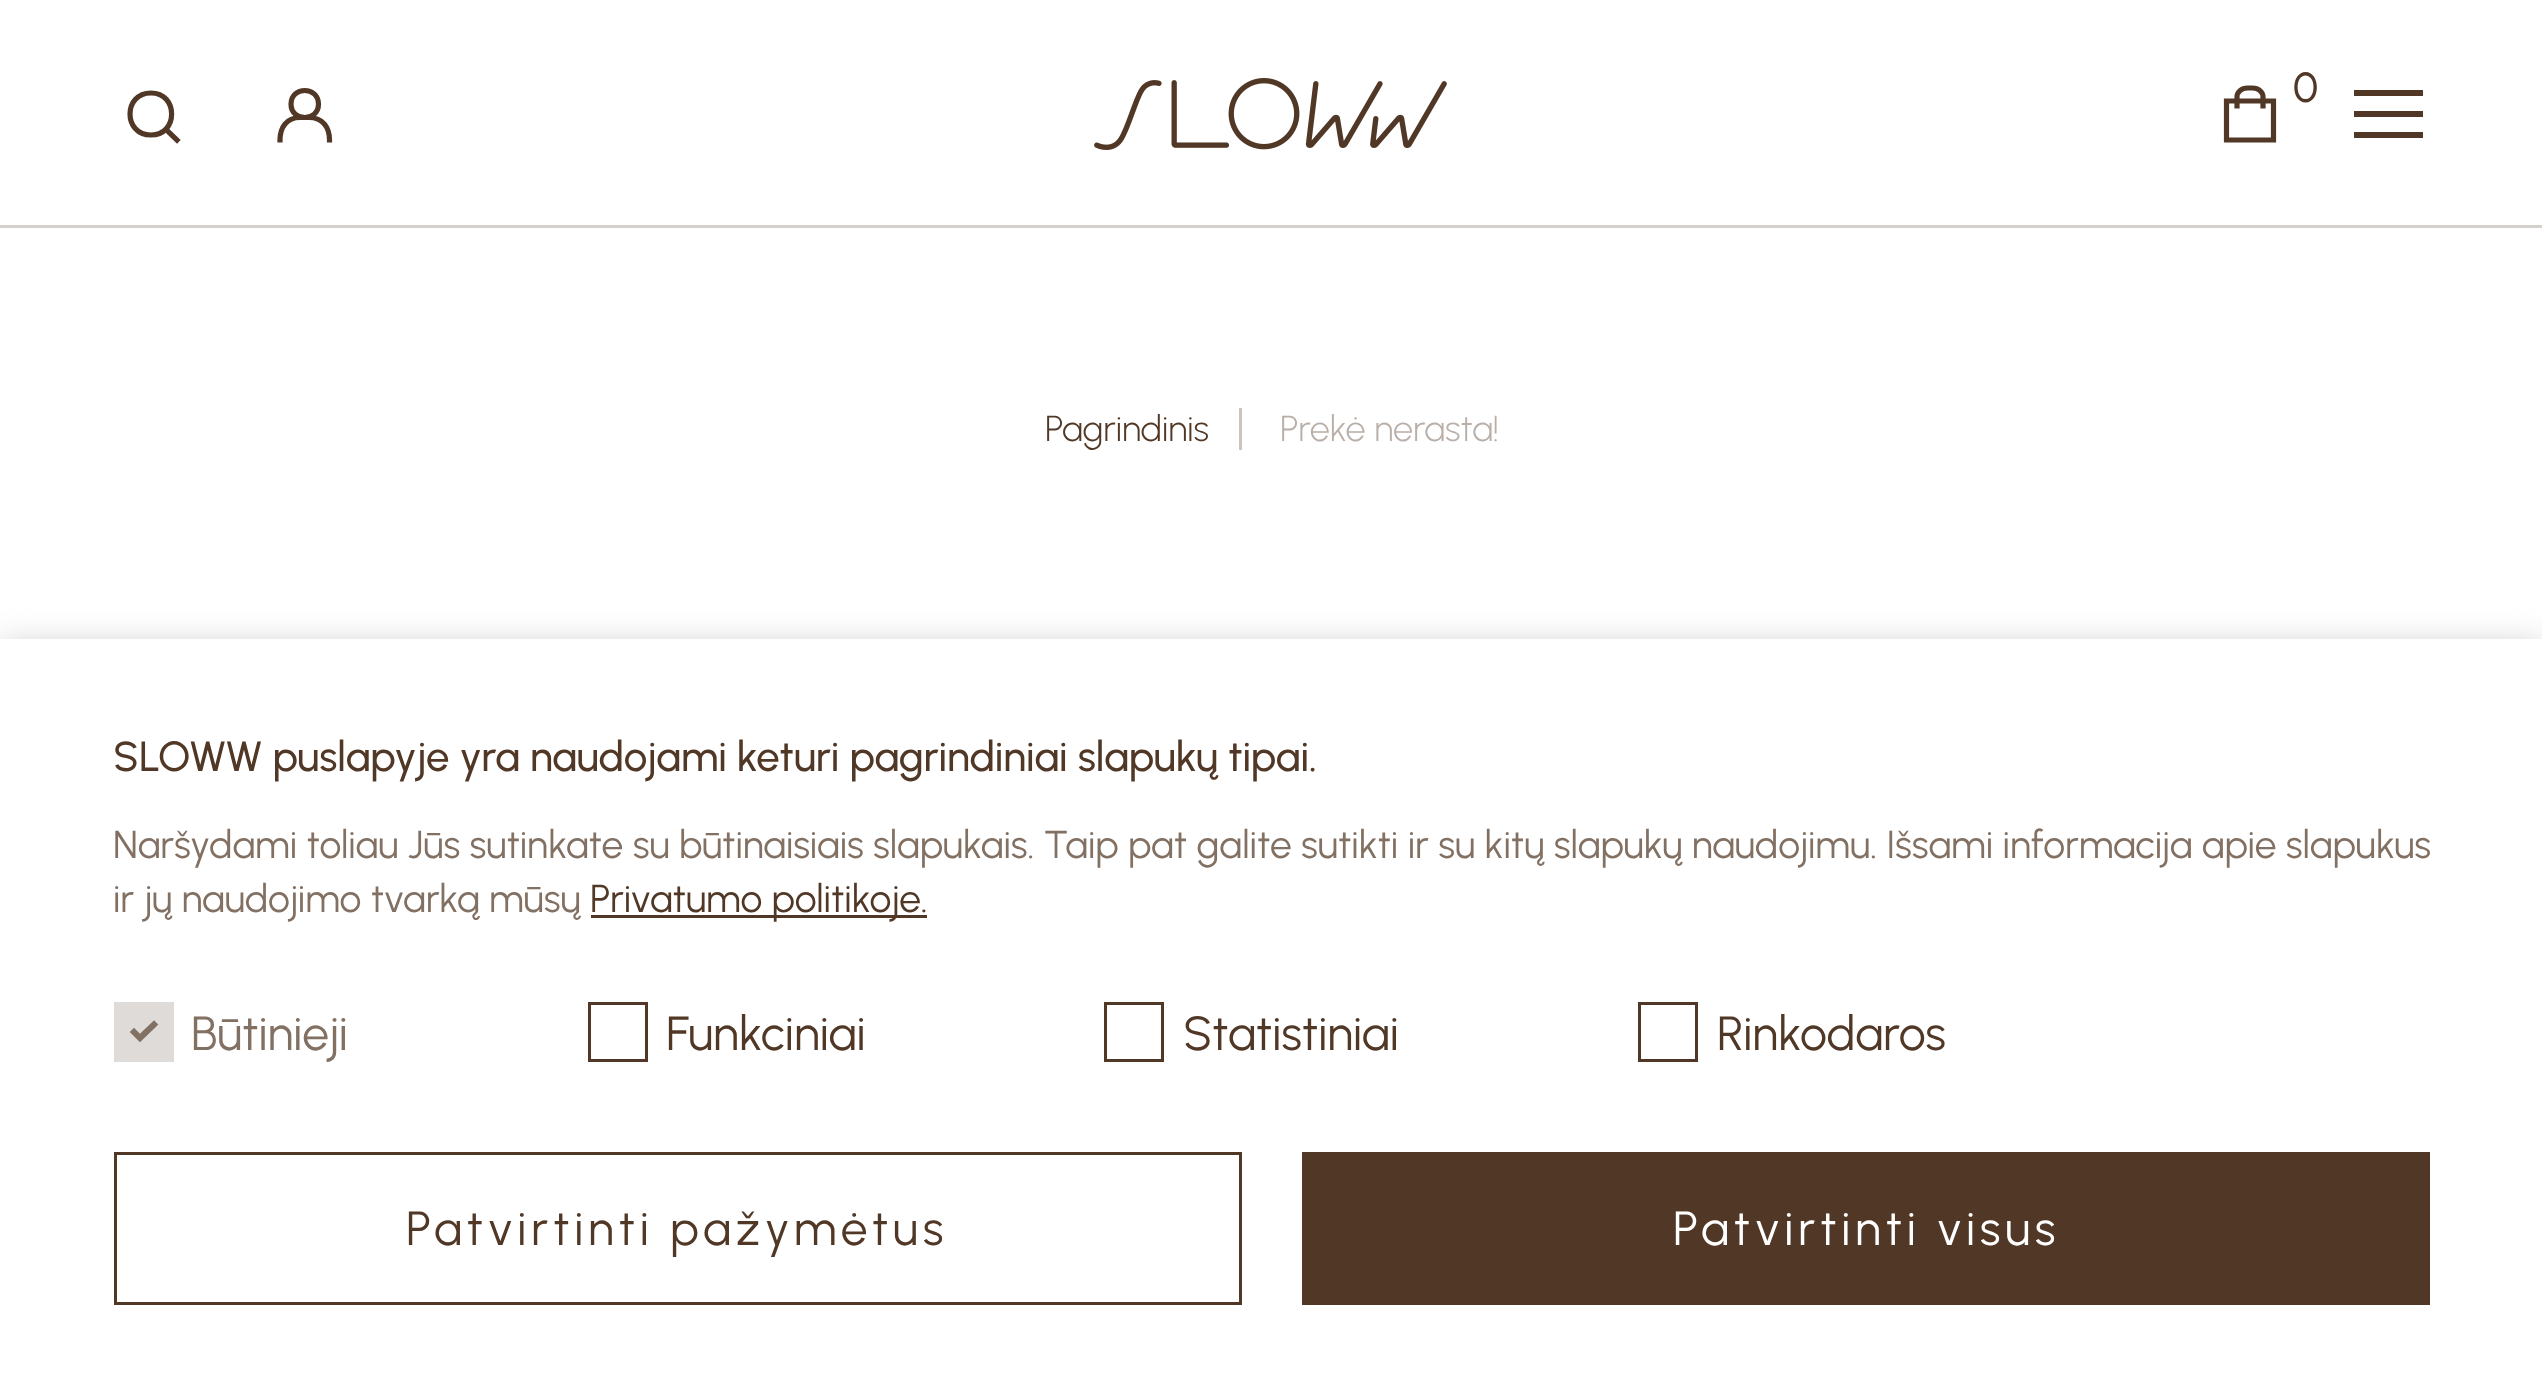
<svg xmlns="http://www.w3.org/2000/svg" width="2542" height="1375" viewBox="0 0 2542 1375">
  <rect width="100%" height="100%" fill="#fff"/>
  <path d="M151 135C178.5 135 178.5 93 151 93C123 93 123 135 151 135Z" fill="none" stroke="#513826" stroke-width="5.2" stroke-linecap="round" stroke-linejoin="round"/>
  <path d="M177 140L166.5 130" fill="none" stroke="#513826" stroke-width="5.2" stroke-linecap="square" stroke-linejoin="round"/>
  <path d="M318.5 104C318.5 122 291 122 291 104C291 86 318.5 86 318.5 104Z" fill="none" stroke="#513826" stroke-width="5.2" stroke-linecap="round" stroke-linejoin="round"/>
  <path d="M280 140C280 127.5 286.5 117.5 300 117.5H309C323 117.5 329.5 127.5 329.5 140" fill="none" stroke="#513826" stroke-width="5.2" stroke-linecap="square" stroke-linejoin="round"/>
  <image x="1094" y="78" width="353" height="72" href="img/1.png"/>
  <path d="M2226.5 140H2273.5V101H2226.5ZM2237 106V97C2237 92 2241.5 88 2247.5 88H2252.5C2258.5 88 2263 92 2263 97V106" fill="none" stroke="#513826" stroke-width="5.2" stroke-linecap="square"/>
  <path d="M2354 90h69v6H2354z" fill="#513826"/>
  <path d="M2354 111h69v6H2354z" fill="#513826"/>
  <path d="M2354 132h69v6H2354z" fill="#513826"/>
  <path d="M0 225h2542v3H0z" fill="#d4d1cc"/>
  <path d="M1239 408h3v42H1239z" fill="#cbc3be"/>
  <path d="M0 648h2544v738H0z" fill="#00000040" filter="blur(18px)"/>
  <path d="M0 639h2542v736H0z" fill="#fff"/>
  <path d="M591 915h336v3H591z" fill="#513826"/>
  <path d="M114 1002h60v60H114z" fill="#dfdbd8"/>
  <path d="M154 1024.5L140 1038L134 1032" fill="none" stroke="#827063" stroke-width="6" stroke-linecap="square"/>
  <path d="M589.5 1003.5h57v57H589.5z" fill="none" stroke="#513826" stroke-width="3"/>
  <path d="M1105.5 1003.5h57v57H1105.5z" fill="none" stroke="#513826" stroke-width="3"/>
  <path d="M1639.5 1003.5h57v57H1639.5z" fill="none" stroke="#513826" stroke-width="3"/>
  <path d="M115.5 1153.5h1125v150H115.5z" fill="none" stroke="#513826" stroke-width="3"/>
  <path d="M1302 1152h1128v153H1302z" fill="#513826"/>
  <text x="2293" y="102" font-family="Urbanist" font-size="42" font-weight="500" letter-spacing="7" fill="#513826">0</text>
  <text x="1045" y="441" font-family="Urbanist" font-size="36" font-weight="300" fill="#513826">Pagrindinis</text>
  <text x="1280" y="441" font-family="Urbanist" font-size="36" font-weight="300" fill="#b9afa8">Prekė nerasta!</text>
  <text x="113" y="771" font-family="Urbanist" font-size="42" font-weight="500" fill="#513826">SLOWW puslapyje yra naudojami keturi pagrindiniai slapukų tipai.</text>
  <g font-family="Urbanist" font-size="39" fill="#827063">
    <text x="113" y="858">Naršydami toliau Jūs sutinkate su būtinaisiais slapukais. Taip pat galite sutikti ir su kitų slapukų naudojimu. Išsami informacija apie slapukus</text>
    <text x="113" y="912">ir jų naudojimo tvarką mūsų</text>
  </g>
  <text x="590" y="912" font-family="Urbanist" font-size="39" fill="#513826">Privatumo politikoje.</text>
  <text x="191" y="1050" font-family="Urbanist" font-size="48" fill="#827063">Būtinieji</text>
  <g font-family="Urbanist" font-size="48" fill="#513826">
    <text x="666" y="1050">Funkciniai</text>
    <text x="1183" y="1050">Statistiniai</text>
    <text x="1717" y="1050">Rinkodaros</text>
  </g>
  <text x="406" y="1245" font-family="Urbanist" font-size="48" letter-spacing="4.8" fill="#513826">Patvirtinti pažymėtus</text>
  <text x="1673" y="1245" font-family="Urbanist" font-size="48" letter-spacing="4.8" fill="#fff">Patvirtinti visus</text>
</svg>
